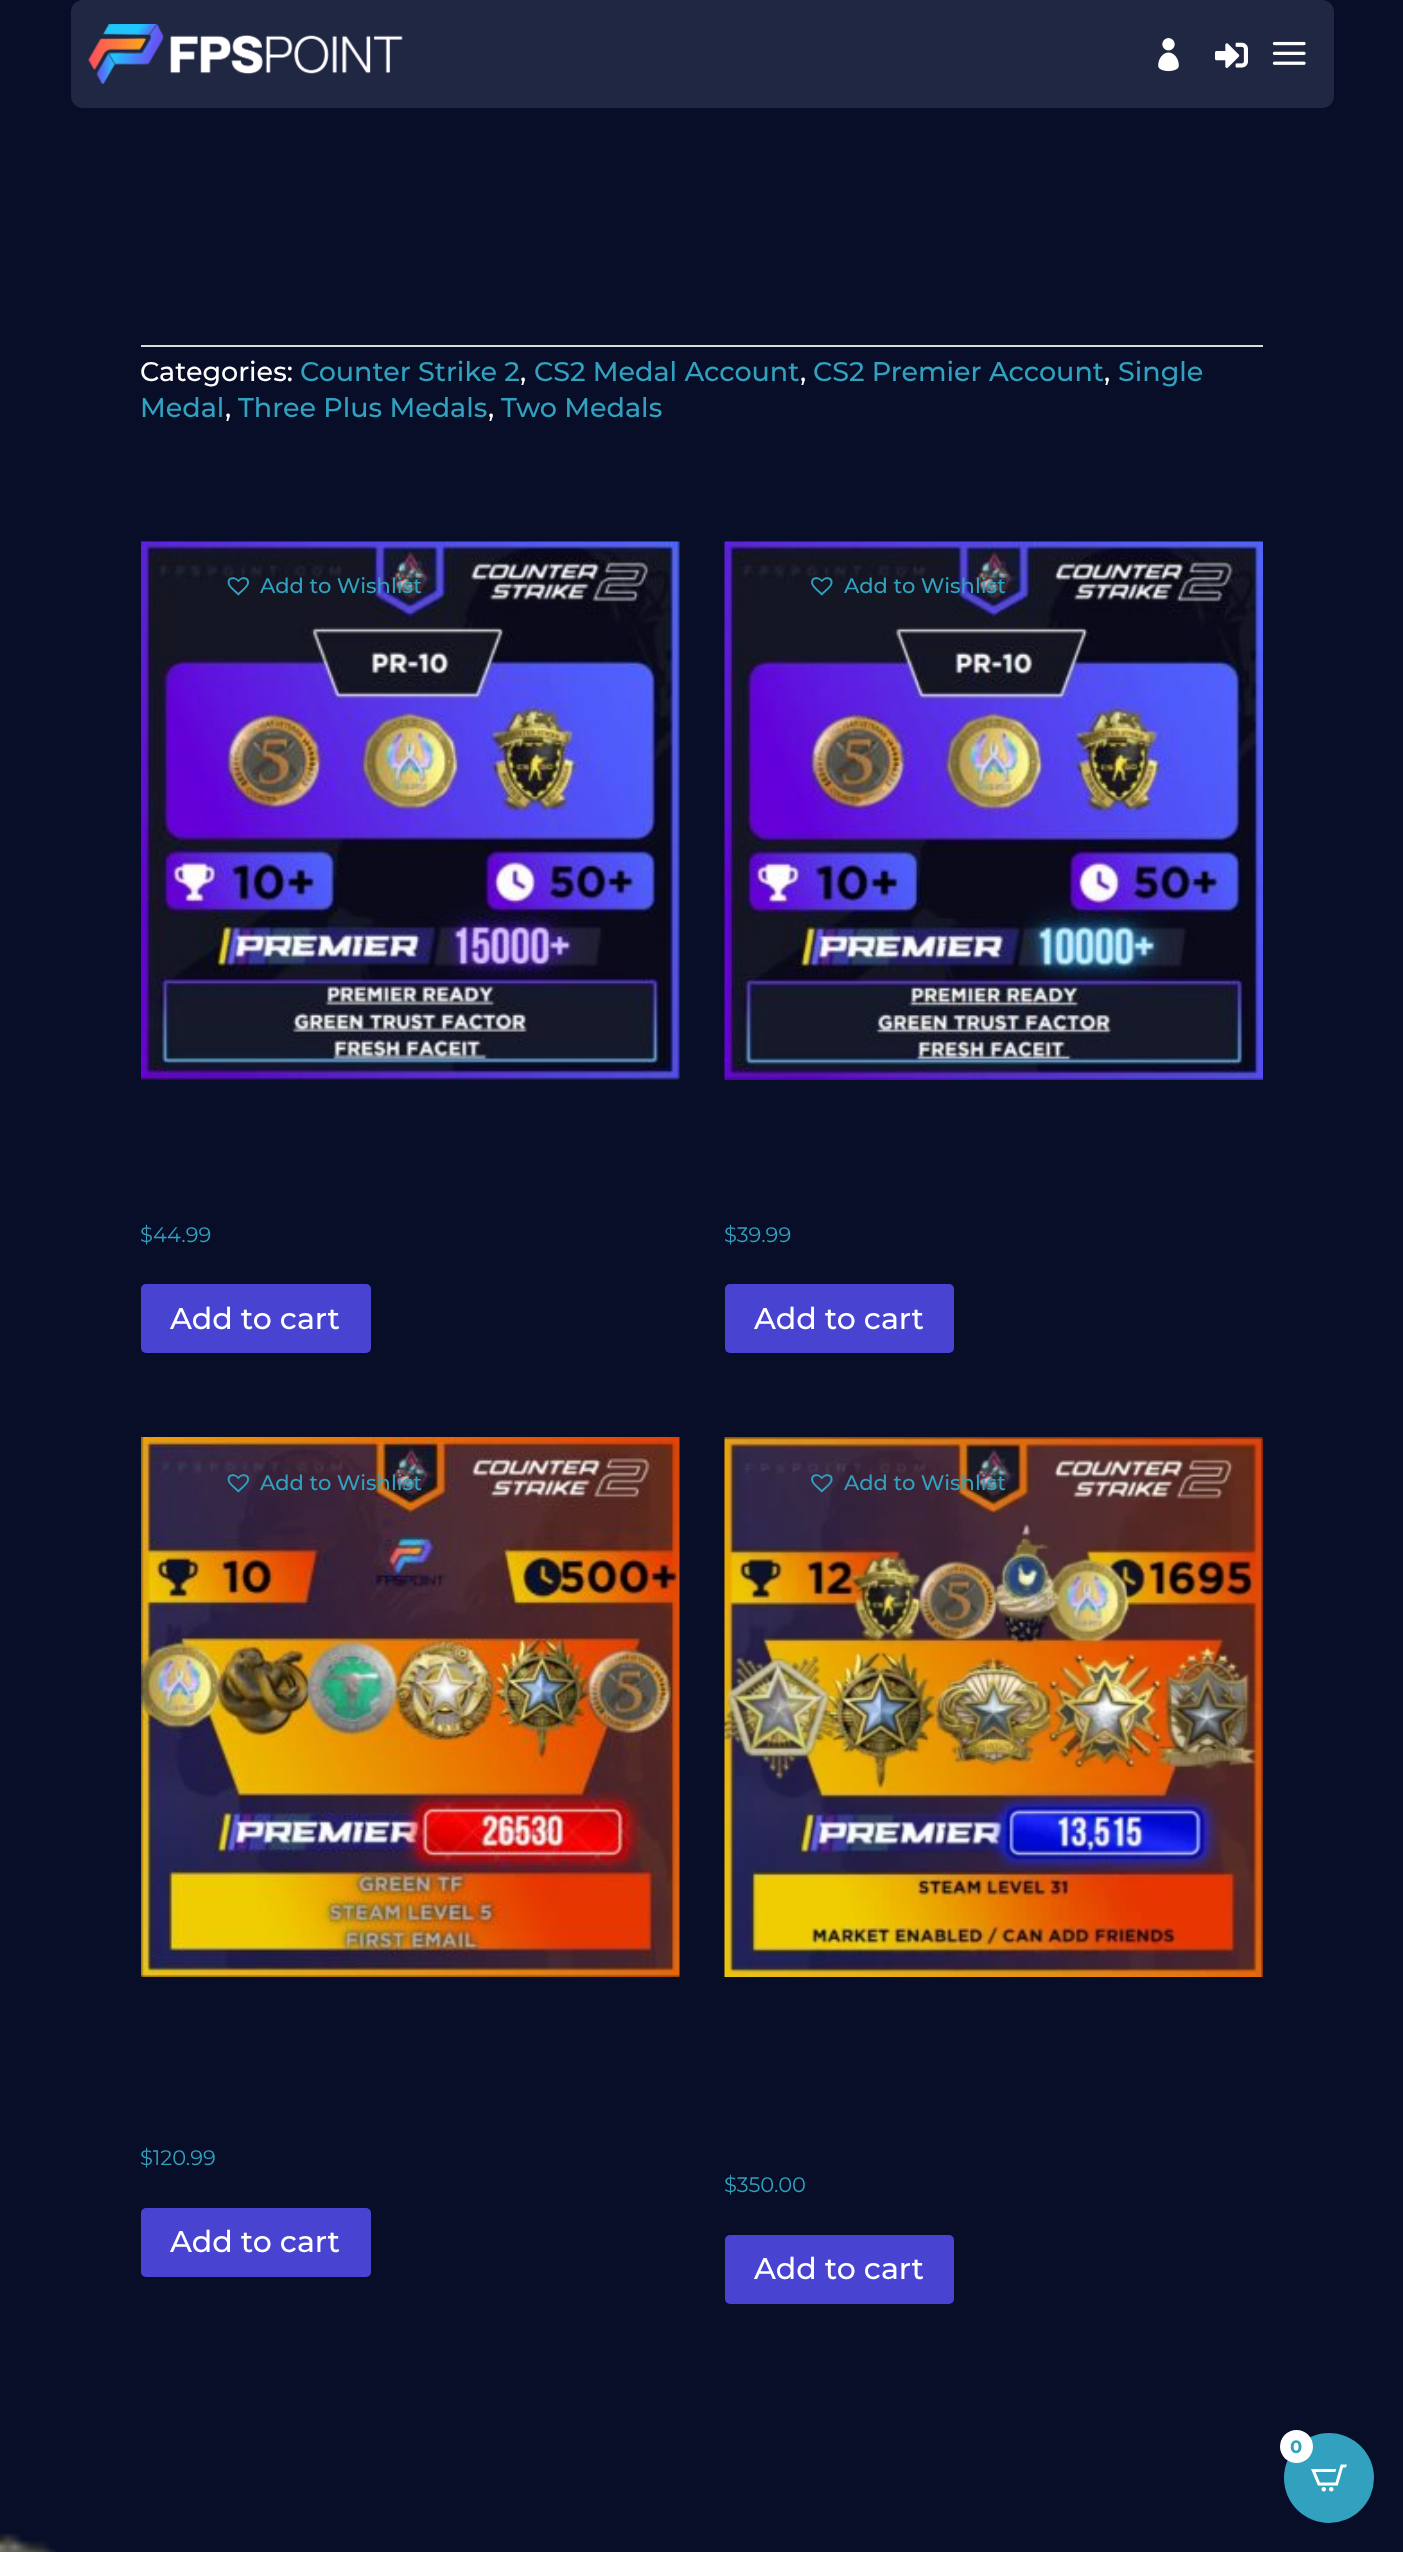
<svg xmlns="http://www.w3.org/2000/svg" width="1403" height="2552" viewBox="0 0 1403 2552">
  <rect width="100%" height="100%" fill="#080e28"/>
  <rect x="71" width="1263" height="108" rx="12" fill="#202743"/>
  <image x="88" y="24" width="315" height="60" href="img/1.png"/>
  <image x="1158" y="38" width="21" height="34" href="img/2.png"/>
  <image x="1215" y="42" width="33" height="26" href="img/3.png"/>
  <image x="1272" y="41" width="34" height="24" href="img/4.png"/>
  <path d="M141 345h1122v2H141z" fill="#dadada"/>
  <image x="141" y="541" width="539" height="539" href="img/6.png"/>
  <image x="227" y="577" width="22" height="19" href="img/5.png"/>
  <rect x="141" y="1284" width="230" height="69" rx="5" fill="#4843d1"/>
  <image x="724" y="541" width="539" height="539" href="img/8.png"/>
  <image x="811" y="577" width="22" height="19" href="img/7.png"/>
  <rect x="725" y="1284" width="229" height="69" rx="5" fill="#4843d1"/>
  <image x="141" y="1437" width="539" height="540" href="img/10.png"/>
  <image x="227" y="1474" width="22" height="19" href="img/9.png"/>
  <rect x="141" y="2208" width="230" height="69" rx="5" fill="#4843d1"/>
  <image x="724" y="1437" width="539" height="540" href="img/12.png"/>
  <image x="811" y="1474" width="22" height="19" href="img/11.png"/>
  <rect x="725" y="2235" width="229" height="69" rx="5" fill="#4843d1"/>
  <image x="0" y="2533" width="56" height="19" href="img/13.png"/>
  <circle cx="1329" cy="2478" r="45" fill="#31a1bf"/>
  <circle cx="1296.5" cy="2446.5" r="16.5" fill="#fff"/>
  <image x="1311" y="2464" width="36" height="28" href="img/14.png"/>
  <text x="140" y="381" font-family="Montserrat" font-size="27" font-weight="100" fill="#fff">Categories:</text>
  <text x="300" y="381" font-family="Montserrat" font-size="27" font-weight="100" fill="#31a1bf">Counter Strike 2</text>
  <text x="520" y="381" font-family="Montserrat" font-size="27" font-weight="100" fill="#fff">,</text>
  <text x="534" y="381" font-family="Montserrat" font-size="27" font-weight="100" fill="#31a1bf">CS2 Medal Account</text>
  <text x="800" y="381" font-family="Montserrat" font-size="27" font-weight="100" fill="#fff">,</text>
  <text x="813" y="381" font-family="Montserrat" font-size="27" font-weight="100" fill="#31a1bf">CS2 Premier Account</text>
  <text x="1104" y="381" font-family="Montserrat" font-size="27" font-weight="100" fill="#fff">,</text>
  <g font-family="Montserrat" font-size="27" font-weight="100" fill="#31a1bf">
    <text x="1118" y="381">Single</text>
    <text x="140" y="417">Medal</text>
  </g>
  <text x="225" y="417" font-family="Montserrat" font-size="27" font-weight="100" fill="#fff">,</text>
  <text x="238" y="417" font-family="Montserrat" font-size="27" font-weight="100" fill="#31a1bf">Three Plus Medals</text>
  <text x="488" y="417" font-family="Montserrat" font-size="27" font-weight="100" fill="#fff">,</text>
  <text x="501" y="417" font-family="Montserrat" font-size="27" font-weight="100" fill="#31a1bf">Two Medals</text>
  <text x="260" y="593" font-family="Montserrat" font-size="21" font-weight="100" fill="#31a1bf">Add to Wishlist</text>
  <text x="140" y="1242" font-family="'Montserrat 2'" font-size="21" font-weight="100" fill="#31a1bf">$44.99</text>
  <text x="170" y="1329" font-family="Montserrat" font-size="30" font-weight="100" fill="#fff">Add to cart</text>
  <text x="844" y="593" font-family="Montserrat" font-size="21" font-weight="100" fill="#31a1bf">Add to Wishlist</text>
  <text x="724" y="1242" font-family="'Montserrat 2'" font-size="21" font-weight="100" fill="#31a1bf">$39.99</text>
  <text x="754" y="1329" font-family="Montserrat" font-size="30" font-weight="100" fill="#fff">Add to cart</text>
  <text x="260" y="1490" font-family="Montserrat" font-size="21" font-weight="100" fill="#31a1bf">Add to Wishlist</text>
  <text x="140" y="2165" font-family="'Montserrat 2'" font-size="21" font-weight="100" fill="#31a1bf">$120.99</text>
  <text x="170" y="2252" font-family="Montserrat" font-size="30" font-weight="100" fill="#fff">Add to cart</text>
  <text x="844" y="1490" font-family="Montserrat" font-size="21" font-weight="100" fill="#31a1bf">Add to Wishlist</text>
  <text x="724" y="2192" font-family="'Montserrat 2'" font-size="21" font-weight="100" fill="#31a1bf">$350.00</text>
  <text x="754" y="2279" font-family="Montserrat" font-size="30" font-weight="100" fill="#fff">Add to cart</text>
  <text x="1290" y="2453" font-family="'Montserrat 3'" font-size="18" font-weight="100" fill="#31a1bf">0</text>
</svg>
